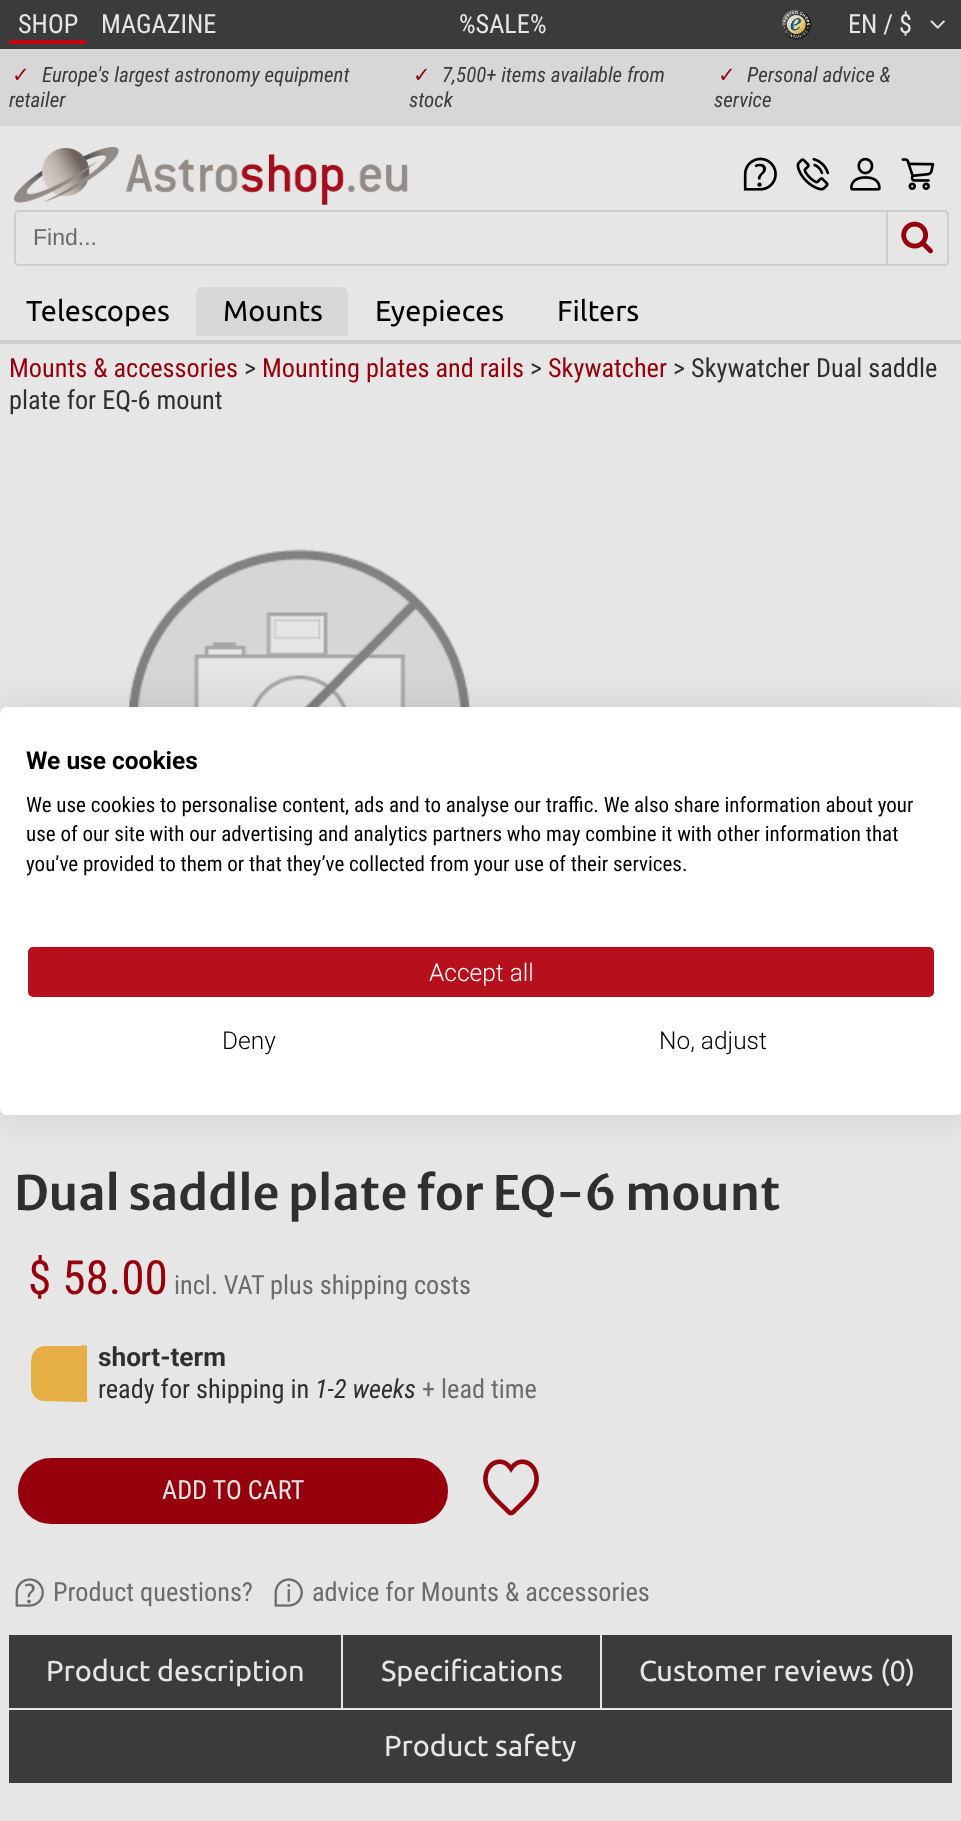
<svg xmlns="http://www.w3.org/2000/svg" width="961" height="1821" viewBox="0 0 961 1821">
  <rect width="100%" height="100%" fill="#e6e6e6"/>
  <path d="M0 0h961v49H0z" fill="#3b3b3c"/>
  <path d="M9 40h77v4H9z" fill="#c7000f"/>
  <image x="781" y="9" width="31" height="31" href="img/1.png"/>
  <image x="930" y="20" width="15" height="9" href="img/2.png"/>
  <path d="M0 49h961v77H0z" fill="#d7d7d7"/>
  <image x="14" y="147" width="394" height="58" href="img/3.png"/>
  <image x="743" y="157" width="34" height="34" href="img/4.png"/>
  <image x="796" y="157" width="34" height="34" href="img/5.png"/>
  <image x="850" y="157" width="31" height="34" href="img/6.png"/>
  <image x="901" y="158" width="34" height="32" href="img/7.png"/>
  <rect x="15" y="211" width="933" height="54" rx="4" fill="none" stroke="#cecece" stroke-width="2"/>
  <path d="M887 211H944C946 211 948 213 948 215V261C948 263 946 265 944 265H887Z" fill="#e6e6e6" stroke="#cecece" stroke-width="2"/>
  <image x="901" y="221" width="32" height="33" href="img/8.png"/>
  <path d="M203 287H341C345 287 348 290 348 294V336H196V294C196 290 199 287 203 287Z" fill="#d7d7d7"/>
  <path d="M0 340h961v4H0z" fill="#cecece"/>
  <image x="127" y="549" width="345" height="158" href="img/9.png"/>
  <path d="M87 1347V1392C87 1403 90 1402 80 1402L43 1401C36 1400 31 1394 31 1387V1369C31 1359 31 1348 44 1346H80C82 1346 87 1344 87 1347Z" fill="#e6af45"/>
  <rect x="16" y="1456" width="434" height="70" rx="35" fill="#95000c" stroke="#e6e6e6" stroke-width="4"/>
  <image x="483" y="1459" width="56" height="57" href="img/10.png"/>
  <image x="15" y="1578" width="29" height="29" href="img/11.png"/>
  <image x="274" y="1578" width="29" height="29" href="img/12.png"/>
  <path d="M9 1635h332v73H9z" fill="#3b3b3c"/>
  <path d="M343 1635h257v73H343z" fill="#3b3b3c"/>
  <path d="M602 1635h350v73H602z" fill="#3b3b3c"/>
  <path d="M9 1710h943v73H9z" fill="#3b3b3c"/>
  <rect y="707" width="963" height="408" rx="7" fill="#0000001a" filter="blur(21px)"/>
  <rect y="707" width="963" height="408" rx="7" fill="#fff"/>
  <rect x="27" y="946" width="908" height="52" rx="6" fill="#b6101d" stroke="#fff" stroke-width="2"/>
  <g font-family="Roboto Condensed" font-size="26.25" fill="#e6e6e6">
    <text x="18" y="33">SHOP</text>
    <text x="101" y="33">MAGAZINE</text>
    <text x="459" y="33">%SALE%</text>
    <text x="848" y="33">EN / $</text>
  </g>
  <text x="12" y="82" font-family="DejaVu Sans" font-size="21" fill="#95000c">✓</text>
  <g font-family="Roboto Condensed" font-size="21" font-style="italic" fill="#3b3b3c">
    <text x="42" y="82">Europe's largest astronomy equipment</text>
    <text x="9" y="107">retailer</text>
  </g>
  <text x="413" y="82" font-family="DejaVu Sans" font-size="21" fill="#95000c">✓</text>
  <g font-family="Roboto Condensed" font-size="21" font-style="italic" fill="#3b3b3c">
    <text x="442" y="82">7,500+ items available from</text>
    <text x="409" y="107">stock</text>
  </g>
  <text x="718" y="82" font-family="DejaVu Sans" font-size="21" fill="#95000c">✓</text>
  <g font-family="Roboto Condensed" font-size="21" font-style="italic" fill="#3b3b3c">
    <text x="747" y="82">Personal advice &amp;</text>
    <text x="714" y="107">service</text>
  </g>
  <text x="33" y="245" font-family="Liberation Sans" font-size="23" fill="#6b6b6b">Find...</text>
  <g font-family="Ubuntu" font-size="28.9" fill="#000">
    <text x="26" y="321">Telescopes</text>
    <text x="223" y="321">Mounts</text>
    <text x="375" y="321">Eyepieces</text>
    <text x="557" y="321">Filters</text>
  </g>
  <text x="9" y="377" font-family="Roboto Condensed" font-size="26.25" fill="#95000c">Mounts &amp; accessories</text>
  <text x="244" y="377" font-family="Roboto Condensed" font-size="26.25" fill="#2f2f2f">&gt;</text>
  <text x="262" y="377" font-family="Roboto Condensed" font-size="26.25" fill="#95000c">Mounting plates and rails</text>
  <text x="530" y="377" font-family="Roboto Condensed" font-size="26.25" fill="#2f2f2f">&gt;</text>
  <text x="548" y="377" font-family="Roboto Condensed" font-size="26.25" fill="#95000c">Skywatcher</text>
  <g font-family="Roboto Condensed" font-size="26.25" fill="#2f2f2f">
    <text x="673" y="377">&gt; Skywatcher Dual saddle</text>
    <text x="9" y="409">plate for EQ-6 mount</text>
  </g>
  <text x="14" y="1210" font-family="Merriweather Sans" font-size="47.25" font-weight="600" fill="#2f2f2f">Dual saddle plate for EQ-6 mount</text>
  <text x="28" y="1294" font-family="Roboto Condensed" font-size="47.25" fill="#95000c">$ 58.00</text>
  <g font-family="Roboto Condensed" font-size="26.25" fill="#6b6b6b">
    <text x="174" y="1294">incl. VAT</text>
    <text x="270" y="1294">plus shipping costs</text>
  </g>
  <text x="98" y="1366" font-family="Roboto" font-size="26.25" font-weight="bold" fill="#2f2f2f">short-term</text>
  <text x="98" y="1398" font-family="Roboto Condensed" font-size="26.25" fill="#2f2f2f">ready for shipping in</text>
  <text x="315" y="1398" font-family="Roboto Condensed" font-size="26.25" font-style="italic" fill="#2f2f2f">1-2 weeks</text>
  <text x="422" y="1398" font-family="Roboto Condensed" font-size="26.25" fill="#6b6b6b">+ lead time</text>
  <text x="162" y="1499" font-family="Roboto Condensed" font-size="26.25" fill="#e6e6e6">ADD TO CART</text>
  <g font-family="Roboto Condensed" font-size="26.25" fill="#6b6b6b">
    <text x="53" y="1601">Product questions?</text>
    <text x="312" y="1601">advice for Mounts &amp; accessories</text>
  </g>
  <g font-family="Ubuntu" font-size="28.9" fill="#e6e6e6">
    <text x="46" y="1681">Product description</text>
    <text x="381" y="1681">Specifications</text>
    <text x="639" y="1681">Customer reviews (0)</text>
    <text x="384" y="1756">Product safety</text>
  </g>
  <text x="26" y="769" font-family="Roboto" font-size="24.5" font-weight="bold" fill="#000">We use cookies</text>
  <g font-family="Roboto Condensed" font-size="21" fill="#000">
    <text x="26" y="812">We use cookies to personalise content, ads and to analyse our traffic. We also share information about your</text>
    <text x="26" y="841">use of our site with our advertising and analytics partners who may combine it with other information that</text>
    <text x="26" y="871">you’ve provided to them or that they’ve collected from your use of their services.</text>
  </g>
  <text x="429" y="981" font-family="Roboto" font-size="24.5" font-weight="300" fill="#fff">Accept all</text>
  <g font-family="Roboto" font-size="24.5" font-weight="300" fill="#000">
    <text x="222" y="1049">Deny</text>
    <text x="659" y="1049">No, adjust</text>
  </g>
</svg>
